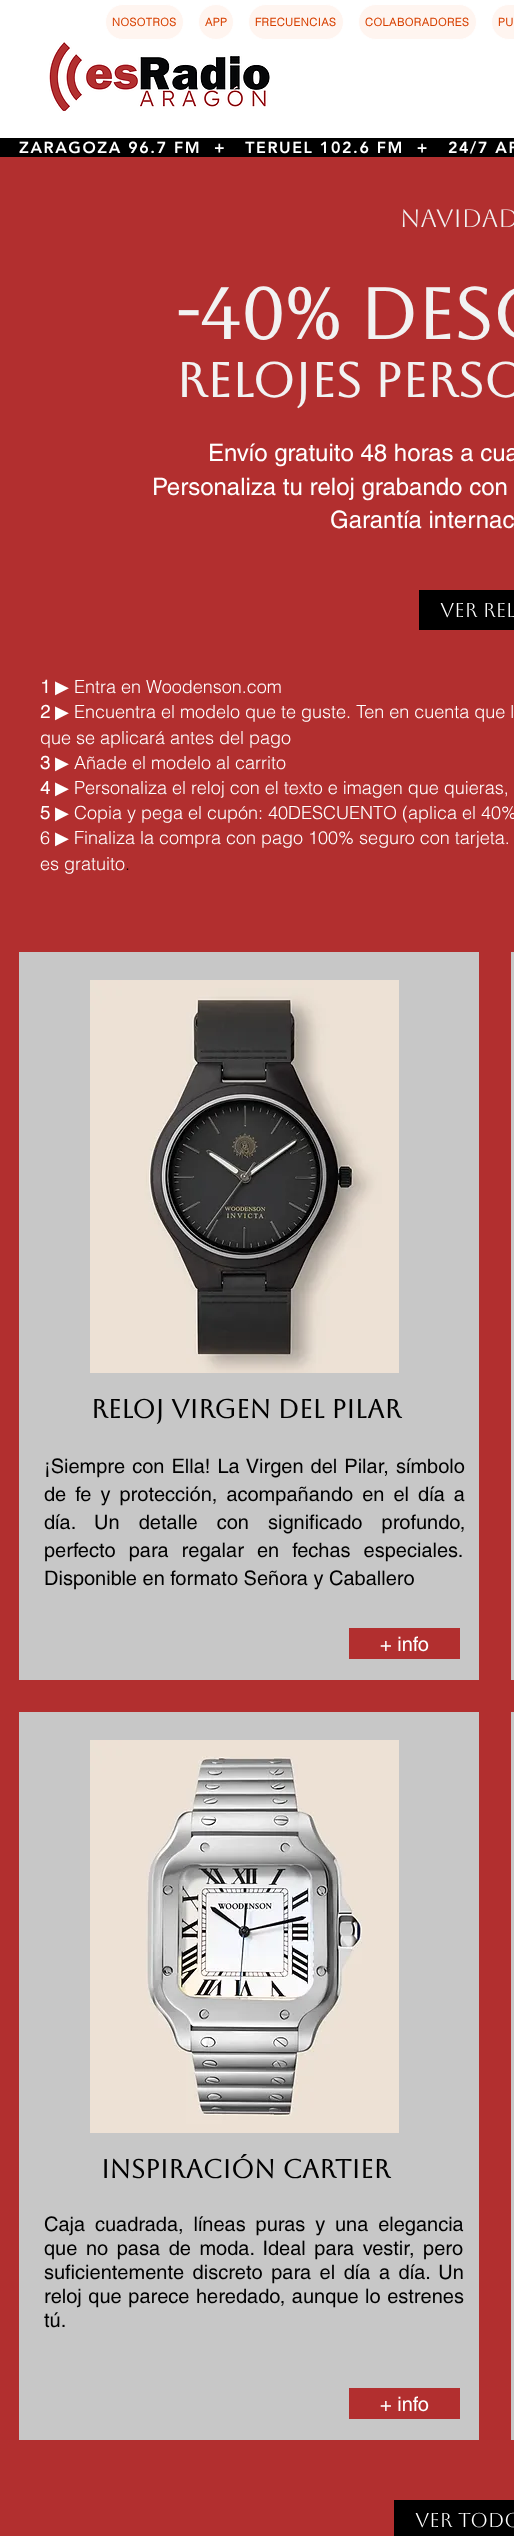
<svg xmlns="http://www.w3.org/2000/svg" width="514" height="2536" viewBox="0 0 514 2536">
  <rect width="100%" height="100%" fill="#fff"/>
  <rect x="105.5" y="4.5" width="78" height="35" rx="17.5" fill="#fff5f0" stroke="#fff"/>
  <circle cx="216" cy="22" r="17.5" fill="#fff5f0" stroke="#fff"/>
  <rect x="248.5" y="4.5" width="95" height="35" rx="17.5" fill="#fff5f0" stroke="#fff"/>
  <rect x="358.5" y="4.5" width="118" height="35" rx="17.5" fill="#fff5f0" stroke="#fff"/>
  <rect x="491.5" y="4.5" width="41" height="35" rx="17.5" fill="#fff5f0" stroke="#fff"/>
  <image x="49" y="42" width="221" height="69" href="img/1.png"/>
  <path d="M0 138h514v19H0z" fill="#000"/>
  <path d="M0 157h514v2379H0z" fill="#b22f2f"/>
  <path d="M419 590h95v40H419z" fill="#000"/>
  <path d="M19 952h460v728H19z" fill="#c7c7c7"/>
  <image x="90" y="980" width="309" height="393" href="img/2.png"/>
  <path d="M349 1628h111v31H349z" fill="#b22f2f"/>
  <path d="M19 1712h460v728H19z" fill="#c7c7c7"/>
  <image x="90" y="1740" width="309" height="393" href="img/3.png"/>
  <path d="M349 2388h111v31H349z" fill="#b22f2f"/>
  <path d="M511 952h3v728H511z" fill="#c7c7c7"/>
  <path d="M511 1712h3v728H511z" fill="#c7c7c7"/>
  <path d="M394 2500h120v36H394z" fill="#000"/>
  <g font-family="helvetica" font-size="11" font-weight="bold" letter-spacing="0.5" fill="#d74000">
    <text x="112" y="26">NOSOTROS</text>
    <text x="205" y="26">APP</text>
    <text x="255" y="26">FRECUENCIAS</text>
    <text x="365" y="26">COLABORADORES</text>
    <text x="498" y="26">PU</text>
  </g>
  <text x="19" y="153" font-family="'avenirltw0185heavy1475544'" font-size="16" font-weight="900" letter-spacing="1.6" fill="#fff" xml:space="preserve">ZARAGOZA 96.7 FM  +   TERUEL 102.6 FM  +   24/7 AP</text>
  <text x="400" y="227" font-family="Aboreto" font-size="25" fill="#f2f2f2">NAVIDAD</text>
  <text x="176" y="339" font-family="Aboreto" font-size="71" font-weight="bold" fill="#f2f2f2">-40% DESC</text>
  <text x="176" y="397" font-family="Aboreto" font-size="48" font-weight="bold" fill="#f2f2f2">RELOJES PERSO</text>
  <g font-family="helvetica" font-size="24" fill="#fff">
    <text x="208" y="461">Envío gratuito 48 horas a cua</text>
    <text x="152" y="495">Personaliza tu reloj grabando con</text>
    <text x="330" y="528">Garantía internac</text>
  </g>
  <text x="40" y="693" font-family="helvetica" font-size="18" font-weight="bold" fill="#fff">1</text>
  <text x="55" y="693" font-family="DejaVu Sans" font-size="18" fill="#fff">▶</text>
  <text x="74" y="693" font-family="helvetica" font-size="18" font-weight="300" fill="#fff">Entra en Woodenson.com</text>
  <text x="40" y="718" font-family="helvetica" font-size="18" font-weight="bold" fill="#fff">2</text>
  <text x="55" y="718" font-family="DejaVu Sans" font-size="18" fill="#fff">▶</text>
  <g font-family="helvetica" font-size="18" font-weight="300" fill="#fff">
    <text x="74" y="718">Encuentra el modelo que te guste. Ten en cuenta que l</text>
    <text x="40" y="744">que se aplicará antes del pago</text>
  </g>
  <text x="40" y="769" font-family="helvetica" font-size="18" font-weight="bold" fill="#fff">3</text>
  <text x="55" y="769" font-family="DejaVu Sans" font-size="18" fill="#fff">▶</text>
  <text x="74" y="769" font-family="helvetica" font-size="18" font-weight="300" fill="#fff">Añade el modelo al carrito</text>
  <text x="40" y="794" font-family="helvetica" font-size="18" font-weight="bold" fill="#fff">4</text>
  <text x="55" y="794" font-family="DejaVu Sans" font-size="18" fill="#fff">▶</text>
  <text x="74" y="794" font-family="helvetica" font-size="18" font-weight="300" fill="#fff">Personaliza el reloj con el texto e imagen que quieras,</text>
  <text x="40" y="819" font-family="helvetica" font-size="18" font-weight="bold" fill="#fff">5</text>
  <text x="55" y="819" font-family="DejaVu Sans" font-size="18" fill="#fff">▶</text>
  <g font-family="helvetica" font-size="18" font-weight="300" fill="#fff">
    <text x="74" y="819">Copia y pega el cupón: 40DESCUENTO (aplica el 40%</text>
    <text x="40" y="844">6</text>
  </g>
  <text x="55" y="844" font-family="DejaVu Sans" font-size="18" fill="#fff">▶</text>
  <g font-family="helvetica" font-size="18" font-weight="300" fill="#fff">
    <text x="74" y="844">Finaliza la compra con pago 100% seguro con tarjeta.</text>
    <text x="40" y="870">es gratuito</text>
  </g>
  <text x="125" y="870" font-family="helvetica" font-size="18" font-weight="300" fill="#000">.</text>
  <text x="440" y="617" font-family="Aboreto" font-size="20" fill="#fff">ver rel</text>
  <text x="91" y="1418" font-family="Aboreto" font-size="26" font-weight="bold" fill="#000">RELOJ VIRGEN DEL PILAR</text>
  <g font-family="helvetica" font-size="20" fill="#000">
    <text x="44" y="1473" word-spacing="1.5">¡Siempre con Ella! La Virgen del Pilar, símbolo</text>
    <text x="44" y="1501" word-spacing="3.5">de fe y protección, acompañando en el día a</text>
    <text x="44" y="1529" word-spacing="13.5">día. Un detalle con significado profundo,</text>
    <text x="44" y="1557" word-spacing="7.5">perfecto para regalar en fechas especiales.</text>
    <text x="44" y="1585">Disponible en formato Señora y Caballero</text>
  </g>
  <text x="380" y="1651" font-family="helvetica" font-size="20" fill="#fff">+ info</text>
  <text x="101" y="2178" font-family="Aboreto" font-size="26" font-weight="bold" fill="#000">INSPIRACIÓN CARTIER</text>
  <g font-family="helvetica" font-size="20" fill="#000">
    <text x="44" y="2231" word-spacing="4.25">Caja cuadrada, líneas puras y una elegancia</text>
    <text x="44" y="2255" word-spacing="3">que no pasa de moda. Ideal para vestir, pero</text>
    <text x="44" y="2279" word-spacing="3">suficientemente discreto para el día a día. Un</text>
    <text x="44" y="2303" word-spacing="1">reloj que parece heredado, aunque lo estrenes</text>
    <text x="44" y="2327">tú.</text>
  </g>
  <text x="380" y="2411" font-family="helvetica" font-size="20" fill="#fff">+ info</text>
  <text x="415" y="2527" font-family="Aboreto" font-size="20" fill="#fff">ver todo</text>
</svg>
